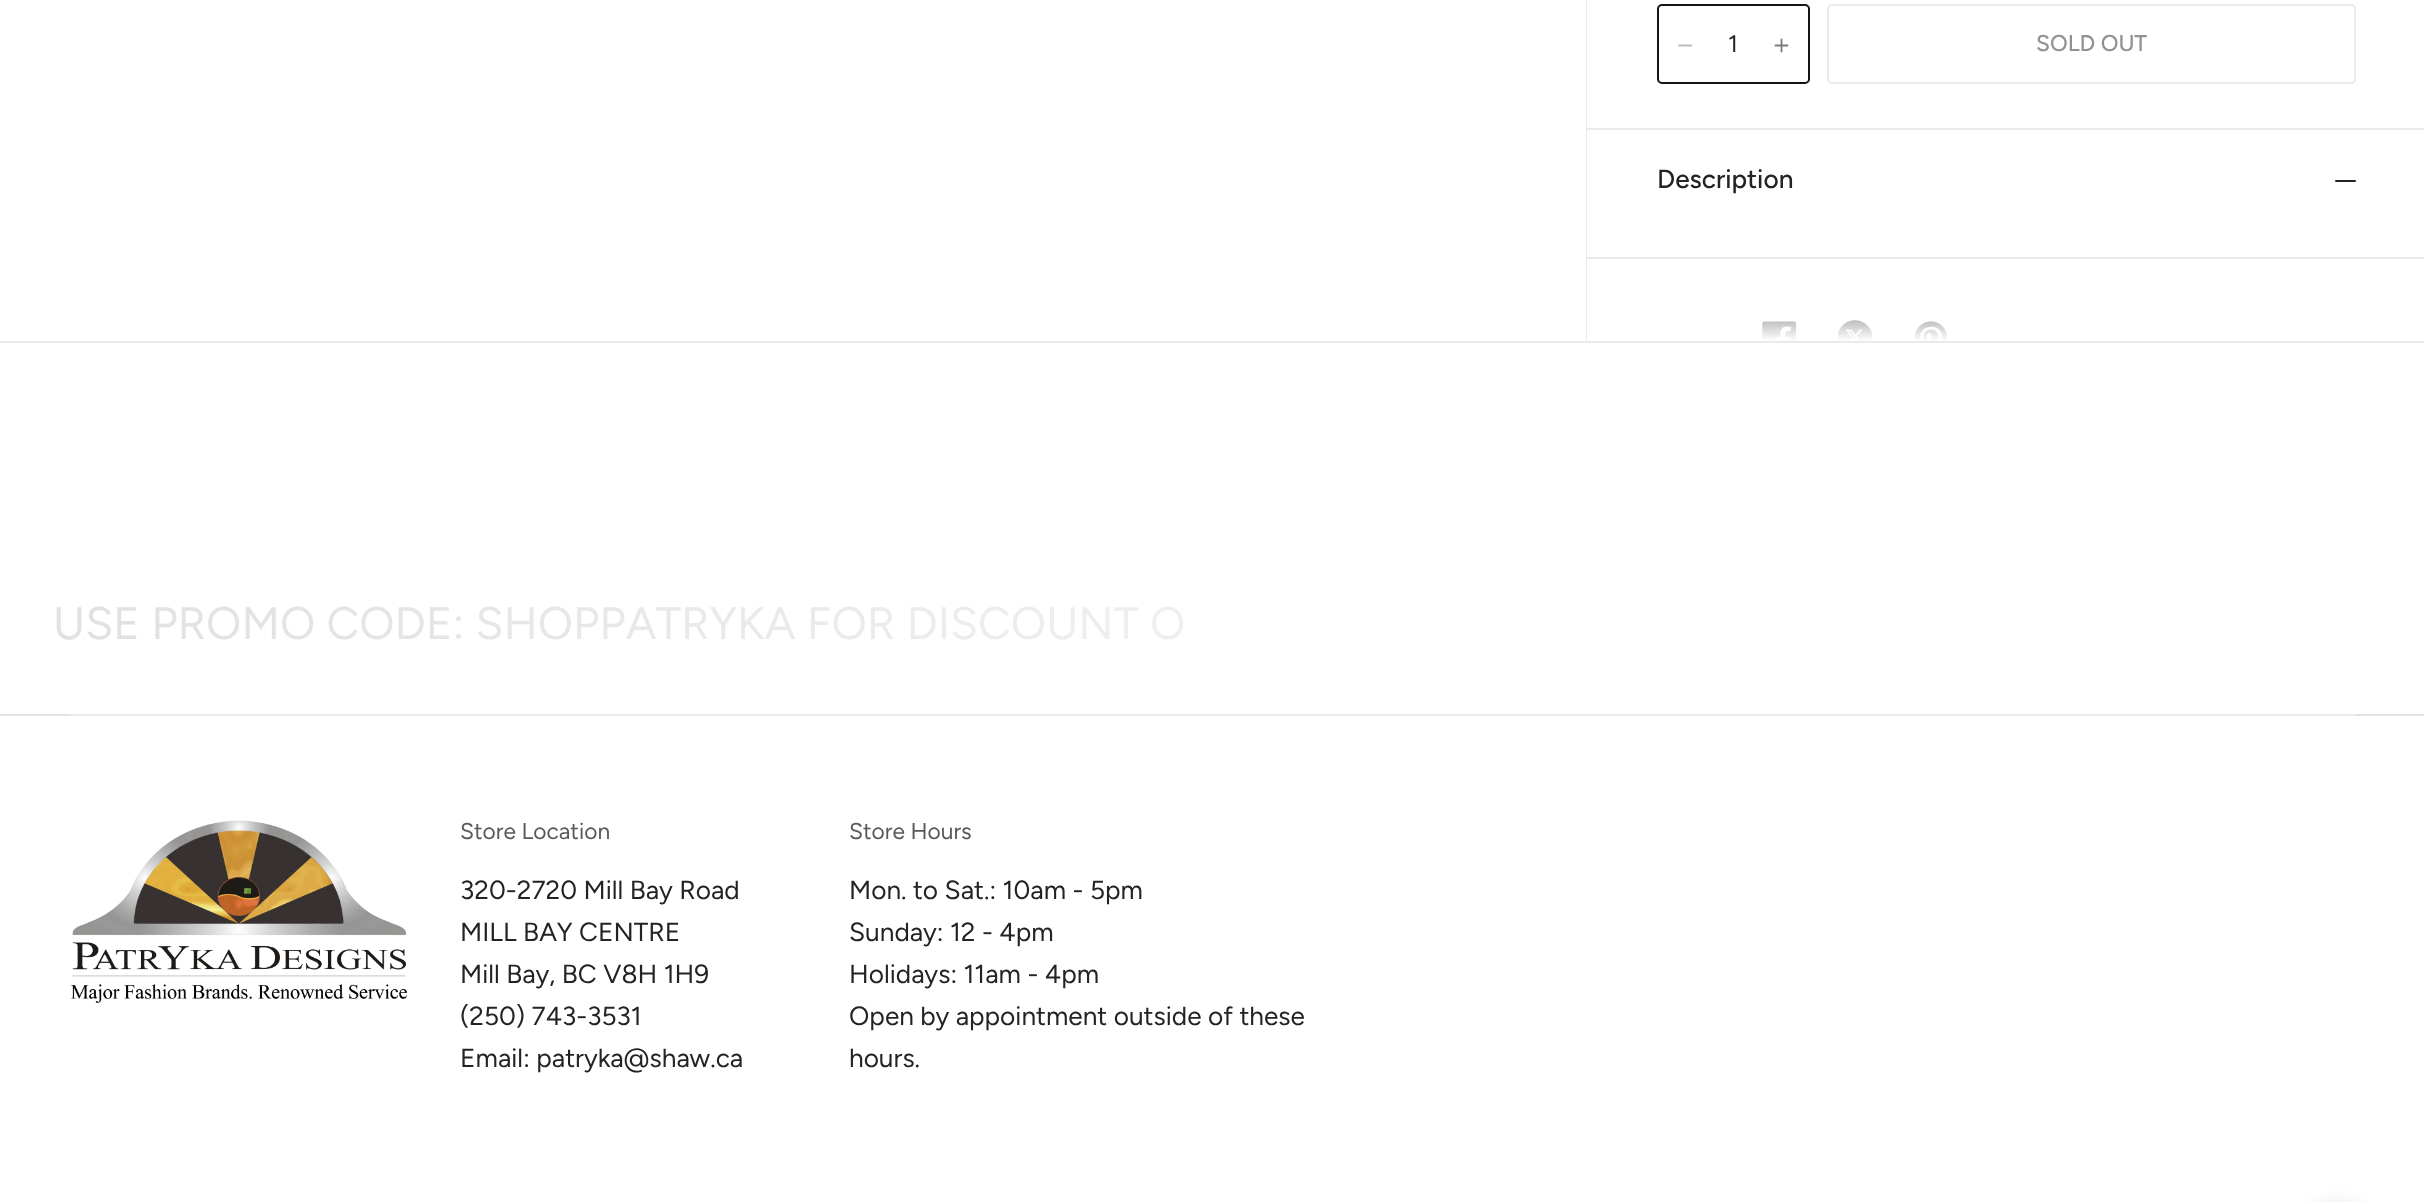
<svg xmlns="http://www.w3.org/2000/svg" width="2424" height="1202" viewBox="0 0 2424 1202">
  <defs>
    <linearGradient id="g1" gradientUnits="userSpaceOnUse" x1="61" y1="907" x2="2326" y2="342"><stop offset="0" stop-color="#e0e0e0"/><stop offset="1" stop-color="#fff"/></linearGradient>
    <linearGradient id="g2" gradientUnits="userSpaceOnUse" x1="2006" y1="271" x2="2006" y2="341"><stop offset="0" stop-color="#fff" stop-opacity="0"/><stop offset="1" stop-color="#fff"/></linearGradient>
  </defs>
  <rect width="100%" height="100%" fill="#fff"/>
  <path d="M0 341h2424v2H0z" fill="#eaeaea"/>
  <path d="M1586 0h1v341H1586z" fill="#eaeaea"/>
  <rect x="1658" y="5" width="151" height="78" rx="4" fill="none" stroke="#151515" stroke-width="2"/>
  <path d="M1679 45.5H1691.5" fill="none" stroke="#bdbdbd" stroke-width="1.8" stroke-linecap="round" stroke-linejoin="round"/>
  <path d="M1775.5 45.5H1787.5M1781.5 39.5V51.5" fill="none" stroke="#7b7b7b" stroke-width="1.8" stroke-linecap="round" stroke-linejoin="round"/>
  <rect x="1828" y="5" width="527" height="78" rx="4" fill="none" stroke="#eaeaea" stroke-width="2"/>
  <path d="M1587 128h837v2H1587z" fill="#eaeaea"/>
  <path d="M1587 257h837v2H1587z" fill="#eaeaea"/>
  <rect x="2335" y="180" width="21" height="2" rx="1" fill="#232323"/>
  <image x="1762" y="321" width="35" height="20" href="img/1.png"/>
  <image x="1838" y="320" width="35" height="21" href="img/2.png"/>
  <image x="1915" y="321" width="33" height="20" href="img/3.png"/>
  <path d="M1762 320h186v21H1762z" fill="url(#g2)"/>
  <path d="M0 714h2424v2H0z" fill="#e2e2e2"/>
  <path d="M70 714h2286v2H70z" fill="#eaeaea"/>
  <image x="70" y="820" width="337" height="183" href="img/4.png"/>
  <rect x="2303" y="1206" width="70" height="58" rx="35" fill="#00000026" filter="blur(9px)"/>
  <text x="1728" y="52" font-family="Figtree" font-size="24" fill="#232323">1</text>
  <text x="2036" y="51" font-family="Figtree" font-size="22.75" font-weight="500" fill="#919191">SOLD OUT</text>
  <text x="1657" y="188" font-family="Figtree" font-size="26.25" font-weight="500" fill="#232323">Description</text>
  <text x="53" y="639" font-family="Figtree" font-size="45.5" fill="url(#g1)">USE PROMO CODE: SHOPPATRYKA FOR DISCOUNT O</text>
  <text x="460" y="839" font-family="Figtree" font-size="22.75" fill="#595959">Store Location</text>
  <g font-family="Figtree" font-size="26.25" fill="#232323">
    <text x="460" y="899">320-2720 Mill Bay Road</text>
    <text x="460" y="941">MILL BAY CENTRE</text>
    <text x="460" y="983">Mill Bay, BC V8H 1H9</text>
    <text x="460" y="1025">(250) 743-3531</text>
    <text x="460" y="1067">Email: patryka@shaw.ca</text>
  </g>
  <text x="849" y="839" font-family="Figtree" font-size="22.75" fill="#595959">Store Hours</text>
  <g font-family="Figtree" font-size="26.25" fill="#232323">
    <text x="849" y="899">Mon. to Sat.: 10am - 5pm</text>
    <text x="849" y="941">Sunday: 12 - 4pm</text>
    <text x="849" y="983">Holidays: 11am - 4pm</text>
    <text x="849" y="1025">Open by appointment outside of these</text>
    <text x="849" y="1067">hours.</text>
  </g>
</svg>
